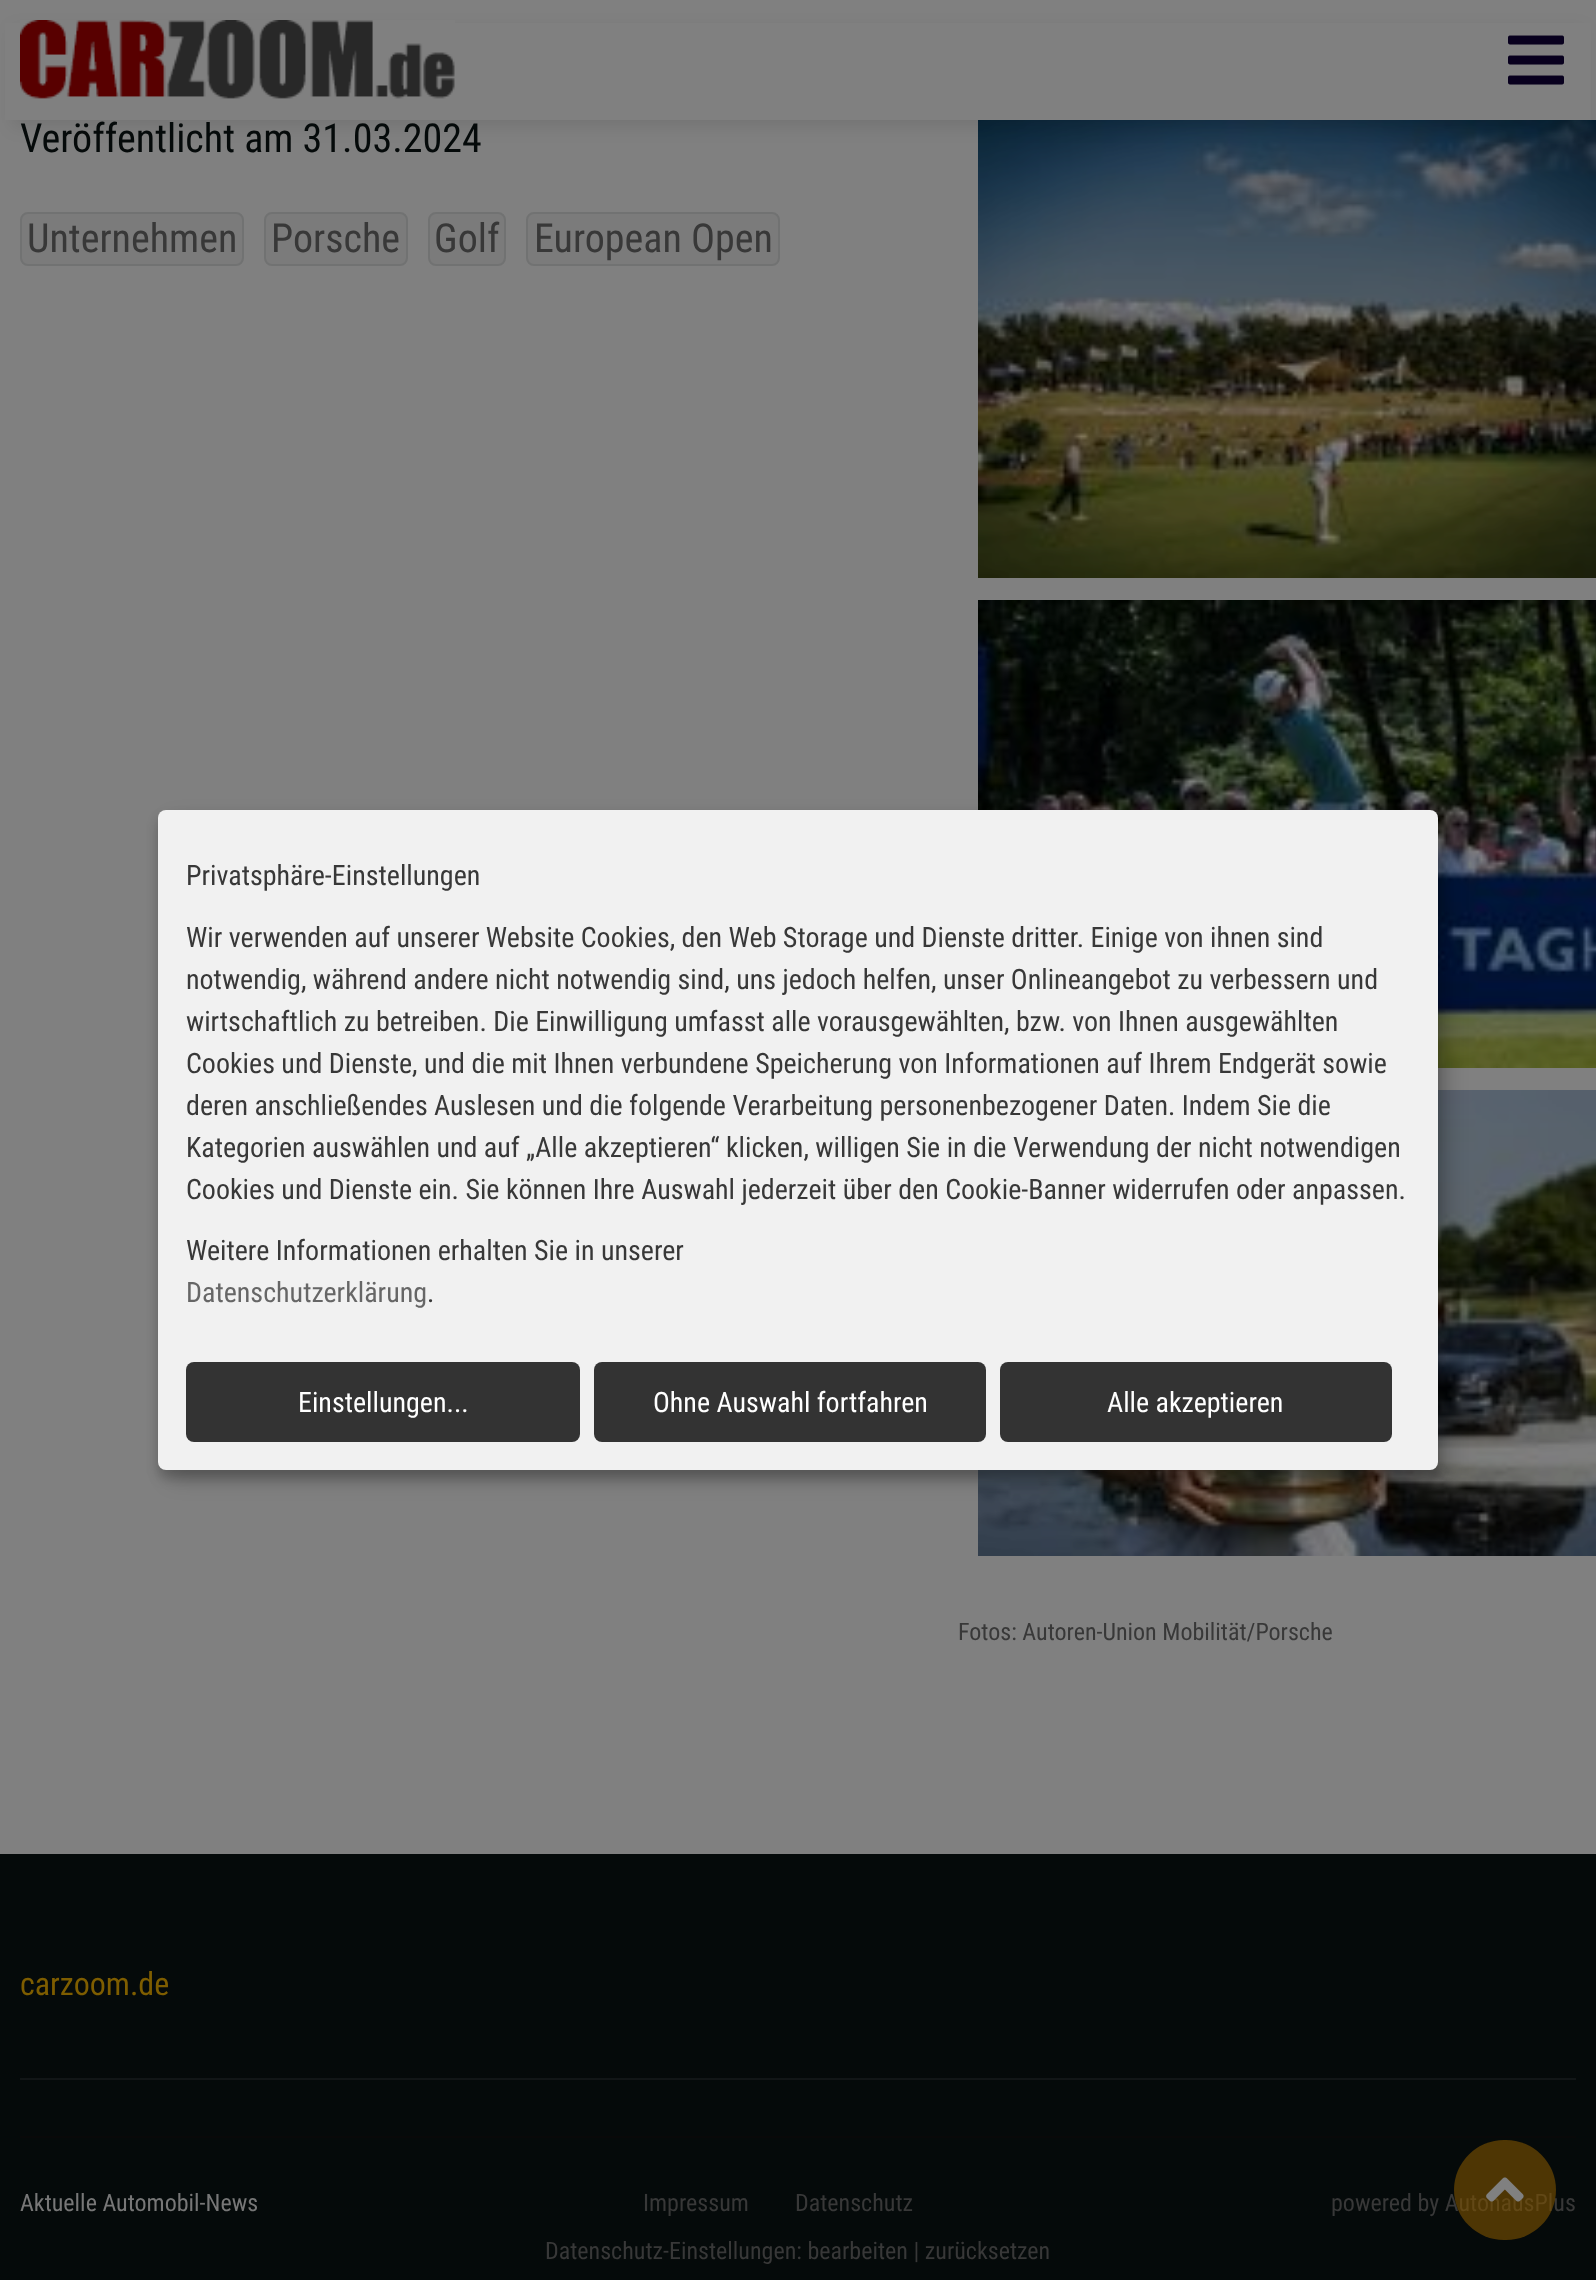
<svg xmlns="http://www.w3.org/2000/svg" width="1596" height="2280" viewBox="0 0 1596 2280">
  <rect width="100%" height="100%" fill="#808080"/>
  <image x="978" y="120" width="618" height="458" href="img/3.png"/>
  <path d="M12 30h1572v96H12z" fill="#0000001a" filter="blur(9px)"/>
  <path d="M5 23h1586v97H5z" fill="#808080"/>
  <image x="20" y="20" width="435" height="79" href="img/1.png"/>
  <image x="1508" y="35" width="56" height="50" href="img/2.png"/>
  <rect x="21" y="213" width="222" height="52" rx="7" fill="#7b7b7b" stroke="#717272" stroke-width="2"/>
  <rect x="265" y="213" width="142" height="52" rx="7" fill="#7b7b7b" stroke="#717272" stroke-width="2"/>
  <rect x="429" y="213" width="76" height="52" rx="7" fill="#7b7b7b" stroke="#717272" stroke-width="2"/>
  <rect x="527" y="213" width="252" height="52" rx="7" fill="#7b7b7b" stroke="#717272" stroke-width="2"/>
  <image x="978" y="600" width="618" height="468" href="img/4.png"/>
  <image x="978" y="1090" width="618" height="466" href="img/5.png"/>
  <path d="M0 1854h1596v426H0z" fill="#050a0a"/>
  <path d="M20 2078h1556v2H20z" fill="#121617"/>
  <path d="M20 2136h1556v2H20z" fill="#090909"/>
  <rect x="168" y="820" width="1280" height="660" rx="8" fill="#00000030" filter="blur(10px)"/>
  <rect x="158" y="818" width="1280" height="660" rx="8" fill="#00000033" filter="blur(6px)"/>
  <rect x="158" y="810" width="1280" height="660" rx="8" fill="#f1f1f1"/>
  <rect x="186" y="1362" width="394" height="80" rx="8" fill="#333"/>
  <rect x="594" y="1362" width="392" height="80" rx="8" fill="#333"/>
  <rect x="1000" y="1362" width="392" height="80" rx="8" fill="#333"/>
  <text x="20" y="152" font-family="Roboto Condensed" font-size="40" fill="#050a0a">Veröffentlicht am 31.03.2024</text>
  <g font-family="Roboto Condensed" font-size="40" fill="#383838">
    <text x="27" y="252">Unternehmen</text>
    <text x="271" y="252">Porsche</text>
    <text x="434" y="252">Golf</text>
    <text x="534" y="252">European Open</text>
  </g>
  <text x="958" y="1640" font-family="Roboto Condensed" font-size="24" fill="#383838">Fotos: Autoren-Union Mobilität/Porsche</text>
  <text x="20" y="1995" font-family="Roboto Condensed" font-size="32" fill="#7e5d00">carzoom.de</text>
  <text x="20" y="2211" font-family="Roboto Condensed" font-size="24" fill="#777">Aktuelle Automobil-News</text>
  <g font-family="Roboto Condensed" font-size="24" fill="#383838">
    <text x="643" y="2211">Impressum</text>
    <text x="795" y="2211">Datenschutz</text>
    <text x="545" y="2259">Datenschutz-Einstellungen: bearbeiten | zurücksetzen</text>
    <text x="1331" y="2211">powered by AutohausPlus</text>
  </g>
  <g font-family="Roboto Condensed" font-size="28" fill="#383838">
    <text x="186" y="885">Privatsphäre-Einstellungen</text>
    <text x="186" y="947">Wir verwenden auf unserer Website Cookies, den Web Storage und Dienste dritter. Einige von ihnen sind</text>
    <text x="186" y="989">notwendig, während andere nicht notwendig sind, uns jedoch helfen, unser Onlineangebot zu verbessern und</text>
    <text x="186" y="1031">wirtschaftlich zu betreiben. Die Einwilligung umfasst alle vorausgewählten, bzw. von Ihnen ausgewählten</text>
    <text x="186" y="1073">Cookies und Dienste, und die mit Ihnen verbundene Speicherung von Informationen auf Ihrem Endgerät sowie</text>
    <text x="186" y="1115">deren anschließendes Auslesen und die folgende Verarbeitung personenbezogener Daten. Indem Sie die</text>
    <text x="186" y="1157">Kategorien auswählen und auf „Alle akzeptieren“ klicken, willigen Sie in die Verwendung der nicht notwendigen</text>
    <text x="186" y="1199">Cookies und Dienste ein. Sie können Ihre Auswahl jederzeit über den Cookie-Banner widerrufen oder anpassen.</text>
    <text x="186" y="1260">Weitere Informationen erhalten Sie in unserer</text>
  </g>
  <text x="186" y="1302" font-family="Roboto Condensed" font-size="28" fill="#666">Datenschutzerklärung</text>
  <text x="427" y="1302" font-family="Roboto Condensed" font-size="28" fill="#383838">.</text>
  <g font-family="Roboto Condensed" font-size="28" fill="#fff">
    <text x="298" y="1412">Einstellungen...</text>
    <text x="653" y="1412">Ohne Auswahl fortfahren</text>
    <text x="1107" y="1412">Alle akzeptieren</text>
  </g>
  <rect x="1454" y="2140" width="102" height="100" rx="50" fill="#7e540099"/>
  <image x="1486" y="2177" width="38" height="25" href="img/6.png"/>
</svg>
